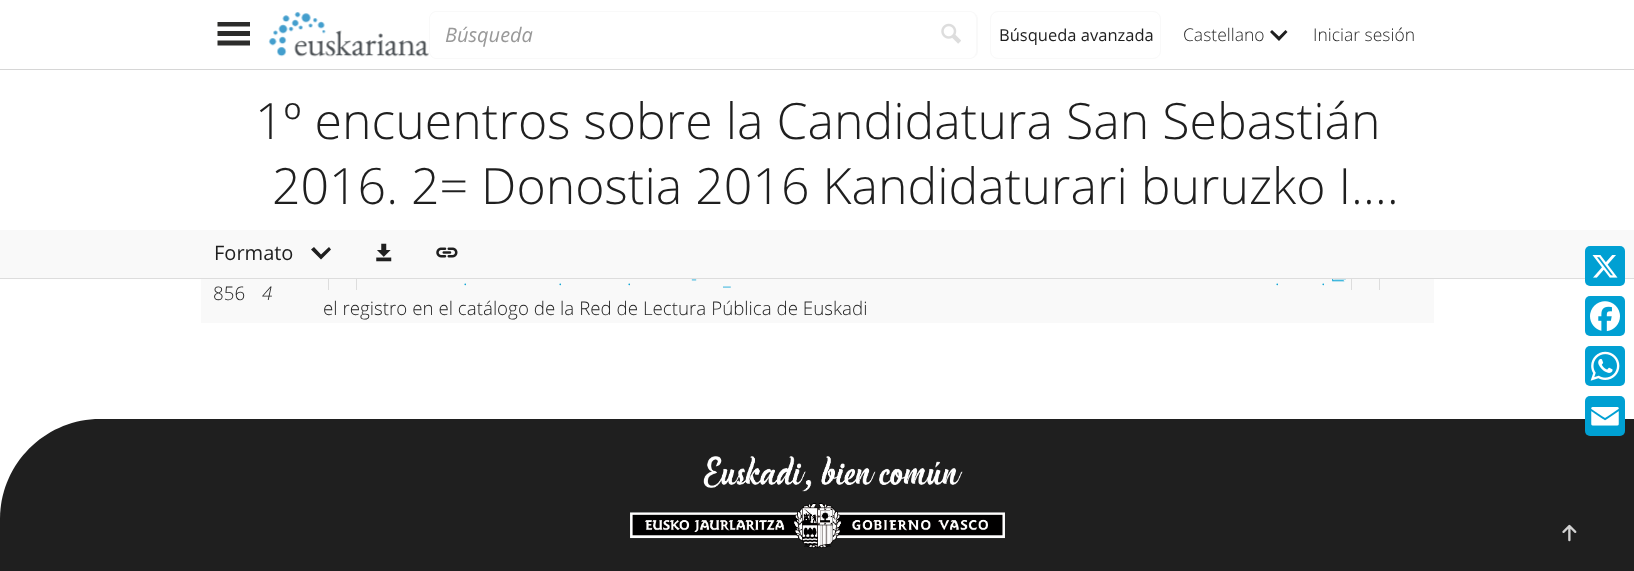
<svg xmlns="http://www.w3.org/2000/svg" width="1634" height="571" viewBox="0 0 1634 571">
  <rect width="100%" height="100%" fill="#fff"/>
  <path d="M0 1h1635v69H0z" fill="#00000029" filter="blur(0.5px)"/>
  <path d="M0 0h1634v69H0z" fill="#fff"/>
  <path d="M217.5 22H250V26.5H217.5ZM217.5 31H250V36H217.5ZM217.5 40.5H250V45.5H217.5Z" fill="#2c2c2b"/>
  <image x="268" y="12" width="161" height="45" href="img/1.png"/>
  <path d="M436 11H926V59H436C432 59 429 55 429 51V19C429 15 432 11 436 11ZM436 12H926V58H436C433 58 430 55 430 51V19C430 15 433 12 436 12Z" fill="#f9f9f9" fill-rule="evenodd"/>
  <path d="M926 11H970C974 11 978 15 978 19V51C978 55 974 59 970 59H926ZM926 12H970C973 12 976 15 976 19V51C976 55 973 58 970 58H926Z" fill="#f9f9f9" fill-rule="evenodd"/>
  <image x="941" y="23" width="20" height="21" href="img/2.png"/>
  <rect x="990.5" y="11.5" width="170" height="47" rx="7.5" fill="none" stroke="#f9f9f9"/>
  <path d="M1287.5 32L1285.5 30L1279 36.5L1272 30L1270 32L1279 41Z" fill="#1f1f1f"/>
  <path d="M0 230h1634v48H0z" fill="#f9f9f9"/>
  <path d="M0 278h1634v1H0z" fill="#ddd"/>
  <path d="M331 249.5L329 247L321 254.5L314 247L311 249.5L321 259.5Z" fill="#1f1f1f"/>
  <image x="376" y="243" width="16" height="19" href="img/3.png"/>
  <image x="436" y="247" width="22" height="11" href="img/4.png"/>
  <path d="M201 279h1233v44H201z" fill="#f9f9f9"/>
  <image x="1332" y="279" width="14" height="3" href="img/5.png"/>
  <path d="M356 279h1v11H356z" fill="#ddd"/>
  <path d="M328 279h1v11H328z" fill="#ddd"/>
  <path d="M1379 279h1v11H1379z" fill="#ddd"/>
  <path d="M1351 279h1v11H1351z" fill="#ddd"/>
  <rect x="1585" y="246" width="40" height="40" rx="5" fill="#00a0d3"/>
  <image x="1592" y="255" width="26" height="23" href="img/6.png"/>
  <rect x="1585" y="296" width="40" height="40" rx="5" fill="#00a0d3"/>
  <image x="1590" y="301" width="30" height="31" href="img/7.png"/>
  <rect x="1585" y="346" width="40" height="40" rx="5" fill="#00a0d3"/>
  <image x="1590" y="351" width="30" height="30" href="img/8.png"/>
  <path d="M100 419H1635V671H0V519C0 464 45 419 100 419Z" fill="#1f1f1f"/>
  <rect x="1585" y="396" width="40" height="40" rx="5" fill="#00a0d3"/>
  <image x="1591" y="407" width="28" height="19" href="img/9.png"/>
  <image x="630" y="456" width="375" height="93" href="img/10.png"/>
  <image x="1562" y="524" width="15" height="18" href="img/11.png"/>
  <text x="445" y="42" font-family="Open Sans" font-size="20" font-style="italic" fill="#999">Búsqueda</text>
  <text x="999" y="41" font-family="Open Sans" font-size="16.5" fill="#1f1f1f">Búsqueda avanzada</text>
  <g font-family="Open Sans" font-size="17.5" font-weight="300" fill="#1f1f1f">
    <text x="1183" y="41">Castellano</text>
    <text x="1313" y="41">Iniciar sesión</text>
  </g>
  <g font-family="Open Sans" font-size="50" font-weight="300" fill="#1f1f1f">
    <text x="255" y="139">1º encuentros sobre la Candidatura San Sebastián</text>
    <text x="272" y="204">2016. 2= Donostia 2016 Kandidaturari buruzko I.…</text>
  </g>
  <text x="214" y="260" font-family="Open Sans" font-size="20" fill="#1f1f1f">Formato</text>
  <text x="213" y="300" font-family="Open Sans" font-size="18.75" font-weight="300" fill="#1f1f1f">856</text>
  <text x="262" y="300" font-family="Open Sans" font-size="18.75" font-weight="300" font-style="italic" fill="#1f1f1f">4</text>
  <g font-family="Open Sans" font-size="18.75" font-weight="300" fill="#00a0d3">
    <text x="691" y="285">-</text>
    <text x="463" y="285">.</text>
    <text x="558" y="285">.</text>
    <text x="627" y="285">.</text>
    <text x="1275" y="285">.</text>
    <text x="1321" y="285">.</text>
    <text x="723" y="285">_</text>
  </g>
  <text x="323" y="315" font-family="Open Sans" font-size="18.75" font-weight="300" fill="#1f1f1f">el registro en el catálogo de la Red de Lectura Pública de Euskadi</text>
</svg>
